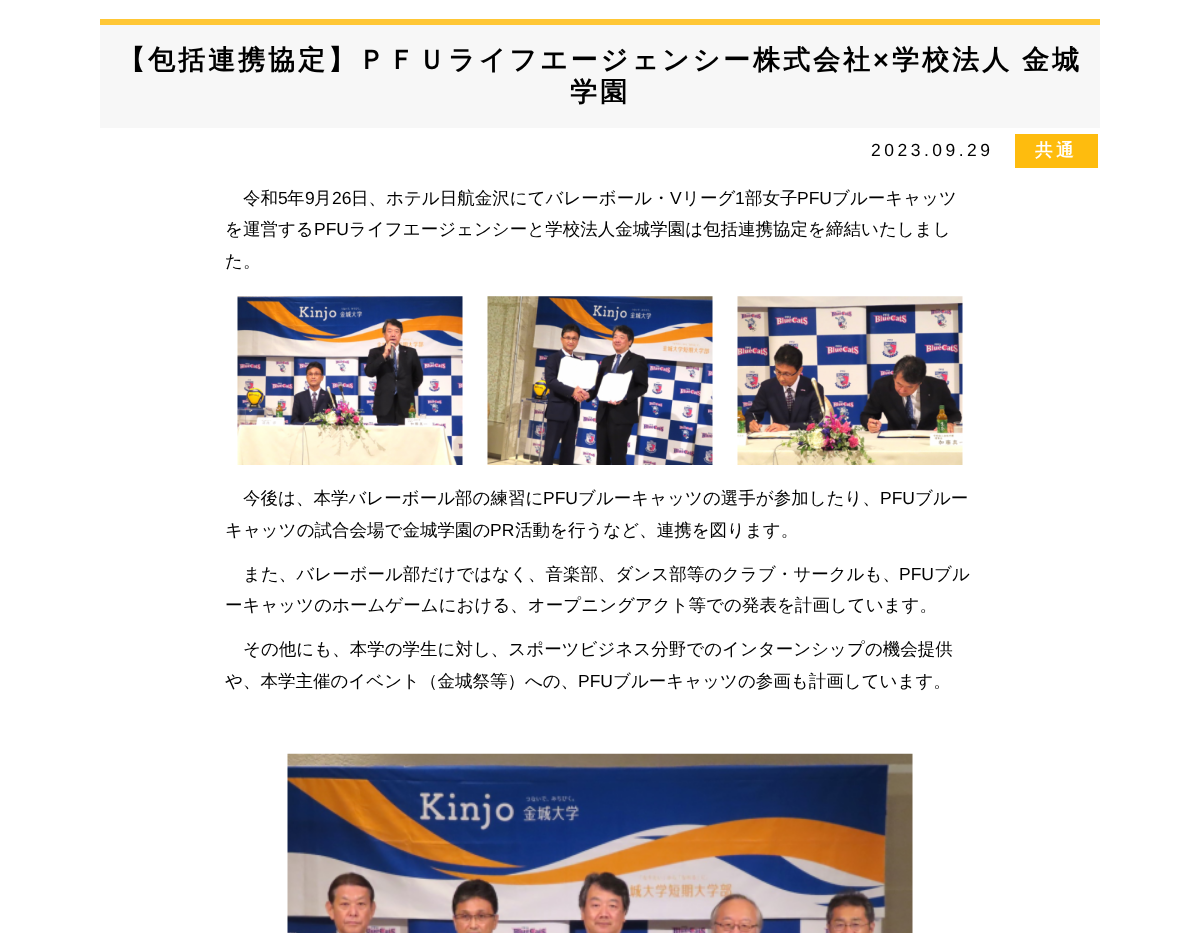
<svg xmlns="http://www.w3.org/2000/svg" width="1200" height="933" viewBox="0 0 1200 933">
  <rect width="100%" height="100%" fill="#fff"/>
  <path d="M100 25h1000v103H100z" fill="#f7f7f7"/>
  <path d="M100 19h1000v6H100z" fill="#ffc736"/>
  <path d="M1015 134h83v34H1015z" fill="#febc0e"/>
  <image x="237" y="296" width="226" height="169" href="img/1.png"/>
  <image x="487" y="296" width="226" height="169" href="img/2.png"/>
  <image x="737" y="296" width="226" height="169" href="img/3.png"/>
  <image x="287" y="753" width="626" height="180" href="img/4.png"/>
  <text x="118" y="69" font-family="WenQuanYi Zen Hei" font-size="27" font-weight="bold" letter-spacing="3" fill="#000">【包括連携協定】ＰＦＵライフエージェンシー株式会社</text>
  <text x="873" y="69" font-family="Liberation Sans" font-size="27" font-weight="bold" letter-spacing="3" fill="#000">×</text>
  <g font-family="WenQuanYi Zen Hei" font-size="27" font-weight="bold" letter-spacing="3" fill="#000">
    <text x="892" y="69" word-spacing="-1">学校法人 金城</text>
    <text x="570" y="101">学園</text>
  </g>
  <text x="871" y="156" font-family="Liberation Sans" font-size="17.5" letter-spacing="3.5" fill="#000">2023.09.29</text>
  <text x="1035" y="156" font-family="WenQuanYi Zen Hei" font-size="17.5" font-weight="bold" letter-spacing="3.5" fill="#fff">共通</text>
  <text x="243" y="204" font-family="WenQuanYi Zen Hei" font-size="17.5" font-weight="500" fill="#000">令和</text>
  <text x="278" y="204" font-family="Liberation Sans" font-size="17.5" fill="#000">5</text>
  <text x="287" y="204" font-family="WenQuanYi Zen Hei" font-size="17.5" font-weight="500" fill="#000">年</text>
  <text x="305" y="204" font-family="Liberation Sans" font-size="17.5" fill="#000">9</text>
  <text x="314" y="204" font-family="WenQuanYi Zen Hei" font-size="17.5" font-weight="500" fill="#000">月</text>
  <text x="332" y="204" font-family="Liberation Sans" font-size="17.5" fill="#000">26</text>
  <text x="351" y="204" font-family="WenQuanYi Zen Hei" font-size="17.5" font-weight="500" fill="#000">日、ホテル日航金沢にてバレーボール・</text>
  <text x="670" y="204" font-family="Liberation Sans" font-size="17.5" fill="#000">V</text>
  <text x="682" y="204" font-family="WenQuanYi Zen Hei" font-size="17.5" font-weight="500" fill="#000">リーグ</text>
  <text x="735" y="204" font-family="Liberation Sans" font-size="17.5" fill="#000">1</text>
  <text x="745" y="204" font-family="WenQuanYi Zen Hei" font-size="17.5" font-weight="500" fill="#000">部女子</text>
  <text x="797" y="204" font-family="Liberation Sans" font-size="17.5" fill="#000">PFU</text>
  <g font-family="WenQuanYi Zen Hei" font-size="17.5" font-weight="500" fill="#000">
    <text x="832" y="204">ブルーキャッツ</text>
    <text x="225" y="235">を運営する</text>
  </g>
  <text x="314" y="235" font-family="Liberation Sans" font-size="17.5" fill="#000">PFU</text>
  <g font-family="WenQuanYi Zen Hei" font-size="17.5" font-weight="500" fill="#000">
    <text x="349" y="235">ライフエージェンシーと学校法人金城学園は包括連携協定を締結いたしまし</text>
    <text x="225" y="267">た。</text>
    <text x="243" y="504">今後は、本学バレーボール部の練習に</text>
  </g>
  <text x="543" y="504" font-family="Liberation Sans" font-size="17.5" fill="#000">PFU</text>
  <text x="578" y="504" font-family="WenQuanYi Zen Hei" font-size="17.5" font-weight="500" fill="#000">ブルーキャッツの選手が参加したり、</text>
  <text x="880" y="504" font-family="Liberation Sans" font-size="17.5" fill="#000">PFU</text>
  <g font-family="WenQuanYi Zen Hei" font-size="17.5" font-weight="500" fill="#000">
    <text x="915" y="504">ブルー</text>
    <text x="225" y="536">キャッツの試合会場で金城学園の</text>
  </g>
  <text x="490" y="536" font-family="Liberation Sans" font-size="17.5" fill="#000">PR</text>
  <g font-family="WenQuanYi Zen Hei" font-size="17.5" font-weight="500" fill="#000">
    <text x="515" y="536">活動を行うなど、連携を図ります。</text>
    <text x="243" y="580">また、バレーボール部だけではなく、音楽部、ダンス部等のクラブ・サークルも、</text>
  </g>
  <text x="899" y="580" font-family="Liberation Sans" font-size="17.5" fill="#000">PFU</text>
  <g font-family="WenQuanYi Zen Hei" font-size="17.5" font-weight="500" fill="#000">
    <text x="934" y="580">ブル</text>
    <text x="225" y="611">ーキャッツのホームゲームにおける、オープニングアクト等での発表を計画しています。</text>
    <text x="243" y="655">その他にも、本学の学生に対し、スポーツビジネス分野でのインターンシップの機会提供</text>
    <text x="225" y="687">や、本学主催のイベント（金城祭等）への、</text>
  </g>
  <text x="578" y="687" font-family="Liberation Sans" font-size="17.5" fill="#000">PFU</text>
  <text x="613" y="687" font-family="WenQuanYi Zen Hei" font-size="17.5" font-weight="500" fill="#000">ブルーキャッツの参画も計画しています。</text>
</svg>
